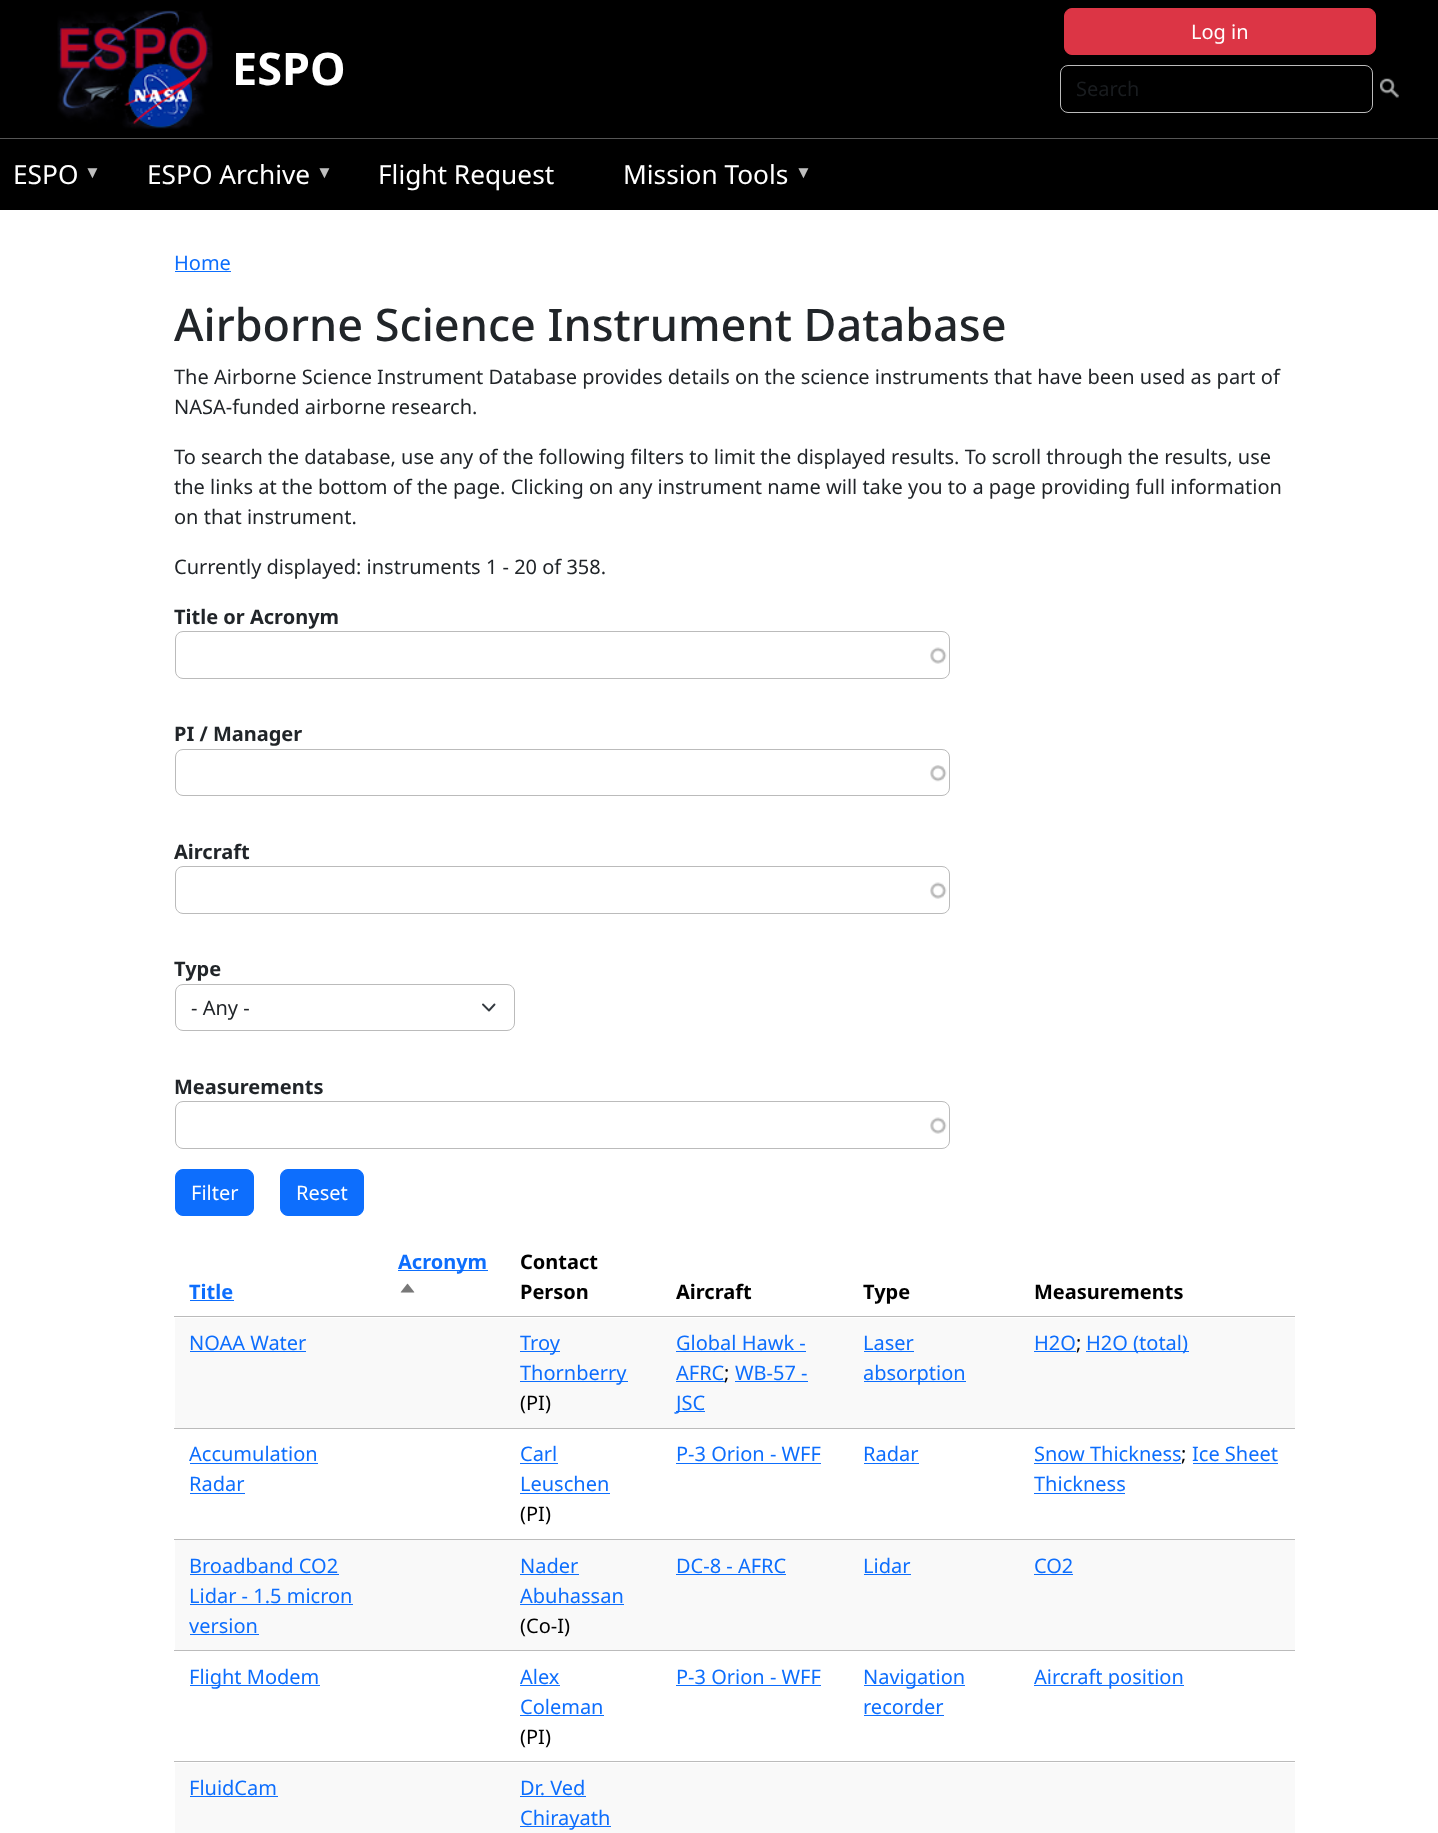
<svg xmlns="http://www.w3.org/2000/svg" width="1438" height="1833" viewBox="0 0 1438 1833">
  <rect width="100%" height="100%" fill="#fff"/>
  <path d="M0 0h1438v138H0z" fill="#000"/>
  <rect x="1064.5" y="8.5" width="311" height="46" rx="7.5" fill="#dc3545" stroke="#dc3545"/>
  <image x="57" y="10" width="156" height="119" href="img/1.png"/>
  <rect x="1060.5" y="65.5" width="312" height="47" rx="7.5" fill="none" stroke="#bbb"/>
  <image x="1380" y="78" width="19" height="20" href="img/2.png"/>
  <path d="M0 139h1438v71H0z" fill="#000"/>
  <path d="M0 138h1438v1H0z" fill="#555"/>
  <path d="M175 271h56v1H175z" fill="#0d6efd"/>
  <image x="930" y="647" width="17" height="17" href="img/3.png"/>
  <rect x="175.5" y="631.5" width="774" height="47" rx="7.5" fill="none" stroke="#bbb"/>
  <image x="930" y="765" width="17" height="17" href="img/4.png"/>
  <rect x="175.5" y="749.5" width="774" height="46" rx="7.5" fill="none" stroke="#bbb"/>
  <image x="930" y="882" width="17" height="17" href="img/3.png"/>
  <rect x="175.5" y="866.5" width="774" height="47" rx="7.5" fill="none" stroke="#bbb"/>
  <path d="M483 1004.5L489 1010.5L494.5 1004.5" fill="none" stroke="#343a40" stroke-width="1.9" stroke-linecap="round" stroke-linejoin="round"/>
  <rect x="175.5" y="984.5" width="339" height="46" rx="7.5" fill="none" stroke="#bbb"/>
  <image x="930" y="1117" width="17" height="17" href="img/3.png"/>
  <rect x="175.5" y="1101.5" width="774" height="47" rx="7.5" fill="none" stroke="#bbb"/>
  <rect x="175.5" y="1169.5" width="78" height="46" rx="7.5" fill="#0d6efd" stroke="#0d6efd"/>
  <rect x="280.5" y="1169.5" width="83" height="46" rx="7.5" fill="#0d6efd" stroke="#0d6efd"/>
  <path d="M190 1300h44v1H190z" fill="#0d6efd"/>
  <path d="M398 1270h90v1H398z" fill="#0d6efd"/>
  <image x="400" y="1283" width="15" height="10" href="img/5.png"/>
  <path d="M174 1316h1121v1H174z" fill="#bbb"/>
  <path d="M175 1318h1120v110H175z" fill="#f9f9f9"/>
  <path d="M190 1351h116v1H190z" fill="#0d6efd"/>
  <path d="M520 1351h40v1H520z" fill="#0d6efd"/>
  <path d="M520 1381h108v1H520z" fill="#0d6efd"/>
  <path d="M676 1351h130v1H676z" fill="#0d6efd"/>
  <path d="M676 1381h49v1H676z" fill="#0d6efd"/>
  <path d="M735 1381h73v1H735z" fill="#0d6efd"/>
  <path d="M676 1411h29v1H676z" fill="#0d6efd"/>
  <path d="M864 1351h50v1H864z" fill="#0d6efd"/>
  <path d="M864 1381h102v1H864z" fill="#0d6efd"/>
  <path d="M174 1428h1121v1H174z" fill="#bbb"/>
  <path d="M1034 1351h42v1H1034z" fill="#0d6efd"/>
  <path d="M1086 1351h103v1H1086z" fill="#0d6efd"/>
  <path d="M190 1463h128v1H190z" fill="#0d6efd"/>
  <path d="M190 1493h55v1H190z" fill="#0d6efd"/>
  <path d="M520 1463h38v1H520z" fill="#0d6efd"/>
  <path d="M520 1493h90v1H520z" fill="#0d6efd"/>
  <path d="M676 1463h145v1H676z" fill="#0d6efd"/>
  <path d="M864 1463h55v1H864z" fill="#0d6efd"/>
  <path d="M174 1539h1121v1H174z" fill="#bbb"/>
  <path d="M1034 1463h147v1H1034z" fill="#0d6efd"/>
  <path d="M1193 1463h85v1H1193z" fill="#0d6efd"/>
  <path d="M1034 1493h91v1H1034z" fill="#0d6efd"/>
  <path d="M175 1540h1120v110H175z" fill="#f9f9f9"/>
  <path d="M190 1574h149v1H190z" fill="#0d6efd"/>
  <path d="M190 1604h163v1H190z" fill="#0d6efd"/>
  <path d="M190 1634h69v1H190z" fill="#0d6efd"/>
  <path d="M520 1574h59v1H520z" fill="#0d6efd"/>
  <path d="M520 1604h104v1H520z" fill="#0d6efd"/>
  <path d="M676 1574h110v1H676z" fill="#0d6efd"/>
  <path d="M864 1574h47v1H864z" fill="#0d6efd"/>
  <path d="M174 1650h1121v1H174z" fill="#bbb"/>
  <path d="M1034 1574h39v1H1034z" fill="#0d6efd"/>
  <path d="M190 1685h130v1H190z" fill="#0d6efd"/>
  <path d="M520 1685h40v1H520z" fill="#0d6efd"/>
  <path d="M520 1715h84v1H520z" fill="#0d6efd"/>
  <path d="M676 1685h145v1H676z" fill="#0d6efd"/>
  <path d="M864 1685h101v1H864z" fill="#0d6efd"/>
  <path d="M864 1715h80v1H864z" fill="#0d6efd"/>
  <path d="M174 1761h1121v1H174z" fill="#bbb"/>
  <path d="M1034 1685h150v1H1034z" fill="#0d6efd"/>
  <path d="M175 1763h1120v70H175z" fill="#f9f9f9"/>
  <path d="M190 1796h88v1H190z" fill="#0d6efd"/>
  <path d="M520 1796h66v1H520z" fill="#0d6efd"/>
  <path d="M520 1826h91v1H520z" fill="#0d6efd"/>
  <text x="1191" y="39" font-family="Noto Sans" font-size="20" fill="#fff">Log in</text>
  <text x="232" y="85" font-family="Noto Sans" font-size="45" font-weight="bold" fill="#fff">ESPO</text>
  <text x="1076" y="96" font-family="Noto Sans" font-size="20" fill="#191c1f">Search</text>
  <text x="13" y="184" font-family="Noto Sans" font-size="26.25" fill="#fff">ESPO</text>
  <text x="84" y="178" font-family="Liberation Sans" font-size="17" fill="#bfbfbf">▼</text>
  <text x="147" y="184" font-family="Noto Sans" font-size="26.25" fill="#fff">ESPO Archive</text>
  <text x="316" y="178" font-family="Liberation Sans" font-size="17" fill="#bfbfbf">▼</text>
  <g font-family="Noto Sans" font-size="26.25" fill="#fff">
    <text x="378" y="184">Flight Request</text>
    <text x="623" y="184">Mission Tools</text>
  </g>
  <text x="795" y="178" font-family="Liberation Sans" font-size="17" fill="#bfbfbf">▼</text>
  <text x="174" y="270" font-family="Noto Sans" font-size="20" fill="#0d6efd">Home</text>
  <text x="174" y="341" font-family="Noto Sans" font-size="45" font-weight="500" fill="#212529">Airborne Science Instrument Database</text>
  <g font-family="Noto Sans" font-size="20" fill="#212529">
    <text x="174" y="384">The Airborne Science Instrument Database provides details on the science instruments that have been used as part of</text>
    <text x="174" y="414">NASA-funded airborne research.</text>
    <text x="174" y="464">To search the database, use any of the following filters to limit the displayed results. To scroll through the results, use</text>
    <text x="174" y="494">the links at the bottom of the page. Clicking on any instrument name will take you to a page providing full information</text>
    <text x="174" y="524">on that instrument.</text>
    <text x="174" y="574">Currently displayed: instruments 1 - 20 of 358.</text>
  </g>
  <g font-family="Noto Sans" font-size="20" font-weight="bold" fill="#212529">
    <text x="174" y="624">Title or Acronym</text>
    <text x="174" y="741">PI / Manager</text>
    <text x="174" y="859">Aircraft</text>
    <text x="174" y="976">Type</text>
  </g>
  <text x="191" y="1015" font-family="Noto Sans" font-size="20" fill="#212529">- Any -</text>
  <text x="174" y="1094" font-family="Noto Sans" font-size="20" font-weight="bold" fill="#212529">Measurements</text>
  <g font-family="Noto Sans" font-size="20" fill="#fff">
    <text x="191" y="1200">Filter</text>
    <text x="296" y="1200">Reset</text>
  </g>
  <g font-family="Noto Sans" font-size="20" font-weight="bold" fill="#0d6efd">
    <text x="189" y="1299">Title</text>
    <text x="398" y="1269">Acronym</text>
  </g>
  <g font-family="Noto Sans" font-size="20" font-weight="bold" fill="#000">
    <text x="520" y="1269">Contact</text>
    <text x="520" y="1299">Person</text>
    <text x="676" y="1299">Aircraft</text>
    <text x="863" y="1299">Type</text>
    <text x="1034" y="1299">Measurements</text>
  </g>
  <g font-family="Noto Sans" font-size="20" fill="#0d6efd">
    <text x="189" y="1350">NOAA Water</text>
    <text x="520" y="1350">Troy</text>
    <text x="520" y="1380">Thornberry</text>
  </g>
  <text x="520" y="1410" font-family="Noto Sans" font-size="20" fill="#000">(PI)</text>
  <g font-family="Noto Sans" font-size="20" fill="#0d6efd">
    <text x="676" y="1350">Global Hawk -</text>
    <text x="676" y="1380">AFRC</text>
  </g>
  <text x="724" y="1380" font-family="Noto Sans" font-size="20" fill="#000">;</text>
  <g font-family="Noto Sans" font-size="20" fill="#0d6efd">
    <text x="735" y="1380">WB-57 -</text>
    <text x="676" y="1410">JSC</text>
    <text x="863" y="1350">Laser</text>
    <text x="863" y="1380">absorption</text>
    <text x="1034" y="1350">H2O</text>
  </g>
  <text x="1076" y="1350" font-family="Noto Sans" font-size="20" fill="#000">;</text>
  <g font-family="Noto Sans" font-size="20" fill="#0d6efd">
    <text x="1086" y="1350">H2O (total)</text>
    <text x="189" y="1461">Accumulation</text>
    <text x="189" y="1491">Radar</text>
    <text x="520" y="1461">Carl</text>
    <text x="520" y="1491">Leuschen</text>
  </g>
  <text x="520" y="1521" font-family="Noto Sans" font-size="20" fill="#000">(PI)</text>
  <g font-family="Noto Sans" font-size="20" fill="#0d6efd">
    <text x="676" y="1461">P-3 Orion - WFF</text>
    <text x="863" y="1461">Radar</text>
    <text x="1034" y="1461">Snow Thickness</text>
  </g>
  <text x="1181" y="1461" font-family="Noto Sans" font-size="20" fill="#000">;</text>
  <g font-family="Noto Sans" font-size="20" fill="#0d6efd">
    <text x="1192" y="1461">Ice Sheet</text>
    <text x="1034" y="1491">Thickness</text>
    <text x="189" y="1573">Broadband CO2</text>
    <text x="189" y="1603">Lidar - 1.5 micron</text>
    <text x="189" y="1633">version</text>
    <text x="520" y="1573">Nader</text>
    <text x="520" y="1603">Abuhassan</text>
  </g>
  <text x="520" y="1633" font-family="Noto Sans" font-size="20" fill="#000">(Co-I)</text>
  <g font-family="Noto Sans" font-size="20" fill="#0d6efd">
    <text x="676" y="1573">DC-8 - AFRC</text>
    <text x="863" y="1573">Lidar</text>
    <text x="1034" y="1573">CO2</text>
    <text x="189" y="1684">Flight Modem</text>
    <text x="520" y="1684">Alex</text>
    <text x="520" y="1714">Coleman</text>
  </g>
  <text x="520" y="1744" font-family="Noto Sans" font-size="20" fill="#000">(PI)</text>
  <g font-family="Noto Sans" font-size="20" fill="#0d6efd">
    <text x="676" y="1684">P-3 Orion - WFF</text>
    <text x="863" y="1684">Navigation</text>
    <text x="863" y="1714">recorder</text>
    <text x="1034" y="1684">Aircraft position</text>
    <text x="189" y="1795">FluidCam</text>
    <text x="520" y="1795">Dr. Ved</text>
    <text x="520" y="1825">Chirayath</text>
  </g>
</svg>
